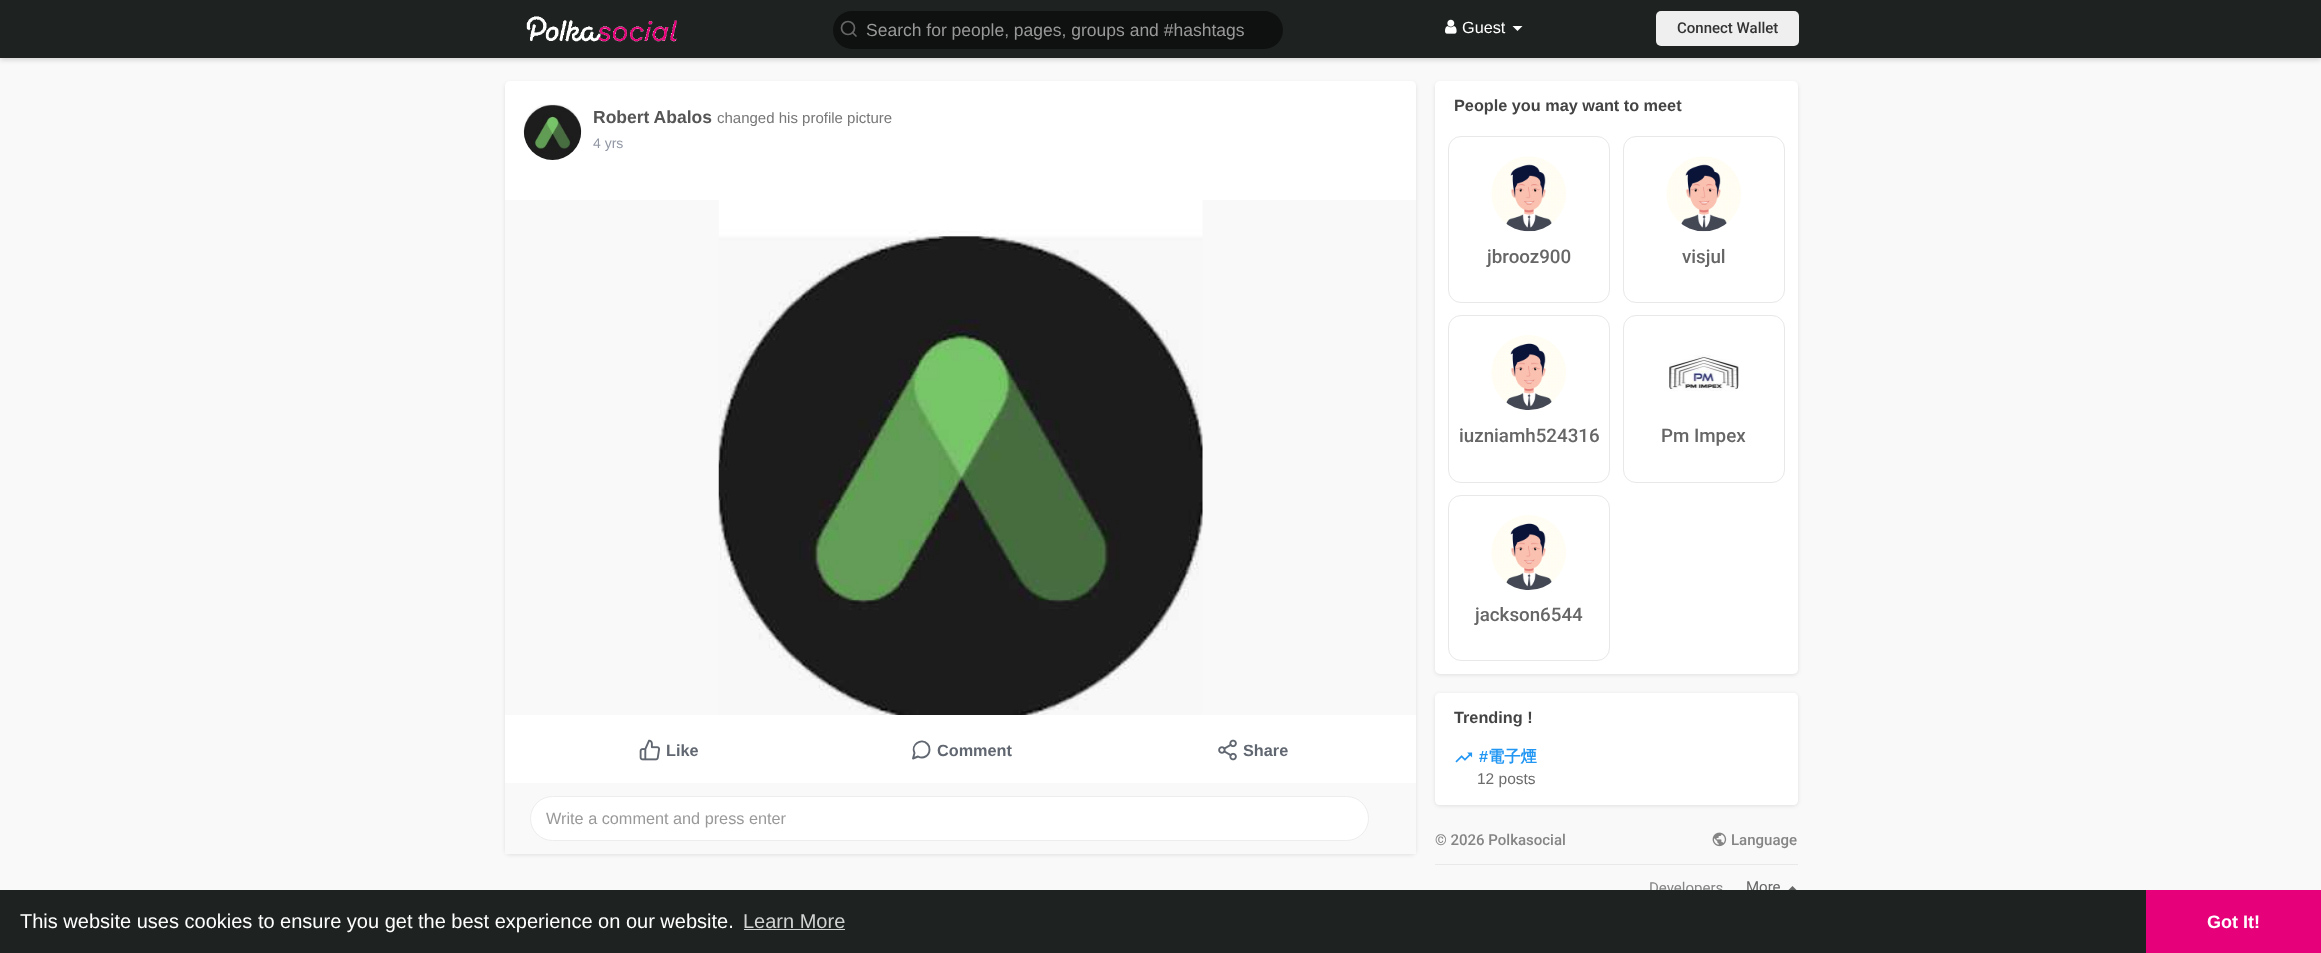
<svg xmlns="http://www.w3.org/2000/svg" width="2321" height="953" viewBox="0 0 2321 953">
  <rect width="100%" height="100%" fill="#f9f9f9"/>
  <path d="M0 3h2321v57H0z" fill="#00000026" filter="blur(2.5px)"/>
  <path d="M0 0h2321v58H0z" fill="#1e2321"/>
  <image x="526" y="16" width="151" height="26" href="img/1.png"/>
  <rect x="833" y="11" width="450" height="38" rx="19" fill="#0f1110"/>
  <circle cx="848" cy="28" r="6.5" fill="none" stroke="#666" stroke-width="1.7"/>
  <path d="M856 36L852.5 32.5" fill="none" stroke="#666" stroke-width="1.7" stroke-linecap="round" stroke-linejoin="round"/>
  <image x="1445" y="19" width="12" height="15" href="img/2.png"/>
  <path d="M1512.5 26H1522.5L1517.5 31Z" fill="#fff"/>
  <rect x="1656" y="11" width="143" height="35" rx="5" fill="#efefef"/>
  <rect x="505" y="83" width="911" height="772" rx="5" fill="#0000001a" filter="blur(2px)"/>
  <rect x="505" y="81" width="911" height="773" rx="5" fill="#fff"/>
  <image x="523" y="104" width="59" height="56" href="img/3.png"/>
  <path d="M505 200h911v515H505z" fill="#f9f9f9"/>
  <image x="718" y="200" width="485" height="515" href="img/4.png"/>
  <image x="639" y="739" width="21" height="22" href="img/5.png"/>
  <path d="M929.5 749.5C929.5 755.5 923.5 759.5 918 756.5L913 758.5L914.5 753C910.5 745 921 737.5 927.5 744C929 745.5 929.5 747.5 929.5 749.5Z" fill="none" stroke="#616770" stroke-width="1.9" stroke-linecap="round" stroke-linejoin="round"/>
  <image x="1218" y="739" width="19" height="22" href="img/6.png"/>
  <path d="M505 783h911v71H505z" fill="#f9f9f9"/>
  <rect x="530.5" y="796.5" width="838" height="44" rx="22" fill="#fff" stroke="#ededed"/>
  <rect x="1435" y="83" width="363" height="592" rx="5" fill="#0000001a" filter="blur(2px)"/>
  <rect x="1435" y="81" width="363" height="593" rx="5" fill="#fff"/>
  <rect x="1448.5" y="136.5" width="161" height="166" rx="12.5" fill="none" stroke="#e8e8e8"/>
  <image x="1491" y="156" width="75" height="76" href="img/7.png"/>
  <rect x="1623.5" y="136.5" width="161" height="166" rx="12.5" fill="none" stroke="#e8e8e8"/>
  <image x="1666" y="156" width="75" height="76" href="img/8.png"/>
  <rect x="1448.5" y="315.5" width="161" height="167" rx="12.5" fill="none" stroke="#e8e8e8"/>
  <image x="1491" y="335" width="75" height="75" href="img/9.png"/>
  <rect x="1623.5" y="315.5" width="161" height="167" rx="12.5" fill="none" stroke="#e8e8e8"/>
  <image x="1669" y="355" width="70" height="36" href="img/10.png"/>
  <rect x="1448.5" y="495.5" width="161" height="165" rx="12.5" fill="none" stroke="#e8e8e8"/>
  <image x="1491" y="515" width="75" height="75" href="img/9.png"/>
  <rect x="1435" y="694" width="363" height="112" rx="5" fill="#0000001a" filter="blur(2px)"/>
  <path d="M1440 693H1793C1796 693 1798 695 1798 698V741H1435V698C1435 695 1437 693 1440 693Z" fill="#fff"/>
  <path d="M1435 741H1798V800C1798 803 1796 805 1793 805H1440C1437 805 1435 803 1435 800Z" fill="#fff"/>
  <image x="1455" y="752" width="18" height="11" href="img/11.png"/>
  <image x="1712" y="832" width="15" height="15" href="img/12.png"/>
  <path d="M1435 864h363v1H1435z" fill="#e9e9e9"/>
  <path d="M1797.5 891H1787.5L1792.5 886Z" fill="#666"/>
  <path d="M2146 890h175v63H2146z" fill="#e6007a"/>
  <text x="866" y="36" font-family="Liberation Sans" font-size="17.5" fill="#999">Search for people, pages, groups and #hashtags</text>
  <text x="1462" y="33" font-family="Liberation Sans" font-size="16.25" fill="#fff">Guest</text>
  <text x="1677" y="33" font-family="Roboto" font-size="15" font-weight="500" fill="#333">Connect Wallet</text>
  <text x="593" y="123" font-family="Liberation Sans" font-size="17.5" font-weight="bold" fill="#555">Robert Abalos</text>
  <text x="717" y="123" font-family="Liberation Sans" font-size="15" fill="#777">changed his profile picture</text>
  <text x="593" y="148" font-family="Liberation Sans" font-size="14" fill="#9197a3">4 yrs</text>
  <g font-family="Liberation Sans" font-size="16.25" font-weight="bold" fill="#616770">
    <text x="666" y="756">Like</text>
    <text x="937" y="756">Comment</text>
    <text x="1243" y="756">Share</text>
  </g>
  <text x="546" y="824" font-family="Liberation Sans" font-size="16.25" fill="#999">Write a comment and press enter</text>
  <text x="1454" y="111" font-family="Liberation Sans" font-size="16.25" font-weight="bold" fill="#444">People you may want to meet</text>
  <g font-family="Roboto" font-size="18.75" font-weight="500" fill="#666">
    <text x="1487" y="263">jbrooz900</text>
    <text x="1682" y="263">visjul</text>
    <text x="1459" y="442">iuzniamh524316</text>
    <text x="1661" y="442">Pm Impex</text>
    <text x="1475" y="621">jackson6544</text>
  </g>
  <text x="1454" y="723" font-family="Liberation Sans" font-size="16.25" font-weight="bold" fill="#444">Trending !</text>
  <text x="1479" y="762" font-family="Liberation Sans" font-size="16.25" font-weight="bold" fill="#2196f3">#</text>
  <text x="1488" y="762" font-family="WenQuanYi Zen Hei" font-size="16.25" font-weight="bold" fill="#2196f3">電子煙</text>
  <text x="1477" y="784" font-family="Liberation Sans" font-size="15.5" fill="#6c6c6c">12 posts</text>
  <g font-family="Roboto" font-size="15" font-weight="500" fill="#858585">
    <text x="1435" y="845">© 2026 Polkasocial</text>
    <text x="1731" y="845">Language</text>
  </g>
  <text x="1649" y="893" font-family="Roboto" font-size="15" fill="#858585">Developers</text>
  <text x="1746" y="892" font-family="Roboto" font-size="15" fill="#666">More</text>
  <path d="M0 890h2146v63H0z" fill="#1e2321"/>
  <text x="20" y="928" font-family="Liberation Sans" font-size="20" fill="#fff">This website uses cookies to ensure you get the best experience on our website.</text>
  <text x="743" y="928" font-family="Liberation Sans" font-size="20" fill="#d2d3d3">Learn More</text>
  <path d="M744 929h101v1H744z" fill="#d2d3d3"/>
  <text x="2207" y="928" font-family="Liberation Sans" font-size="18" font-weight="bold" fill="#fff">Got It!</text>
</svg>
